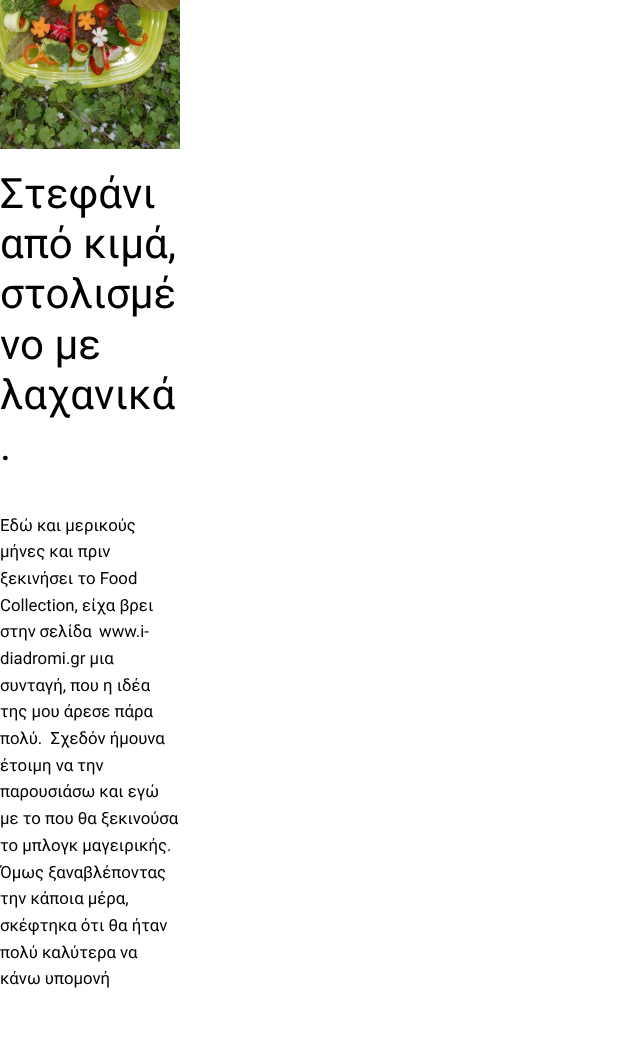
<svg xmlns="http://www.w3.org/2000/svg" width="624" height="1041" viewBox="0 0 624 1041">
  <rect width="100%" height="100%" fill="#fff"/>
  <image x="0" y="0" width="180" height="149" href="img/1.png"/>
  <g font-family="Roboto" font-size="42" fill="#000">
    <text x="0" y="208">Στεφάνι</text>
    <text x="0" y="258">από κιμά,</text>
    <text x="0" y="308">στολισμέ</text>
    <text x="0" y="359">νο με</text>
    <text x="0" y="409">λαχανικά</text>
    <text x="0" y="460">.</text>
  </g>
  <g font-family="Roboto" font-size="16.75" fill="#000">
    <text x="0" y="531">Εδώ και μερικούς</text>
    <text x="0" y="557">μήνες και πριν</text>
    <text x="0" y="584">ξεκινήσει το Food</text>
    <text x="0" y="611">Collection, είχα βρει</text>
    <text x="0" y="637" word-spacing="-0.5" xml:space="preserve">στην σελίδα  www.i-</text>
    <text x="0" y="664">diadromi.gr μια</text>
    <text x="0" y="691">συνταγή, που η ιδέα</text>
    <text x="0" y="717">της μου άρεσε πάρα</text>
    <text x="0" y="744" xml:space="preserve">πολύ.  Σχεδόν ήμουνα</text>
    <text x="0" y="771">έτοιμη να την</text>
    <text x="0" y="797">παρουσιάσω και εγώ</text>
    <text x="0" y="824">με το που θα ξεκινούσα</text>
    <text x="0" y="851">το μπλογκ μαγειρικής.</text>
    <text x="0" y="878">Όμως ξαναβλέποντας</text>
    <text x="0" y="904">την κάποια μέρα,</text>
    <text x="0" y="931">σκέφτηκα ότι θα ήταν</text>
    <text x="0" y="958">πολύ καλύτερα να</text>
    <text x="0" y="984">κάνω υπομονή</text>
  </g>
</svg>
